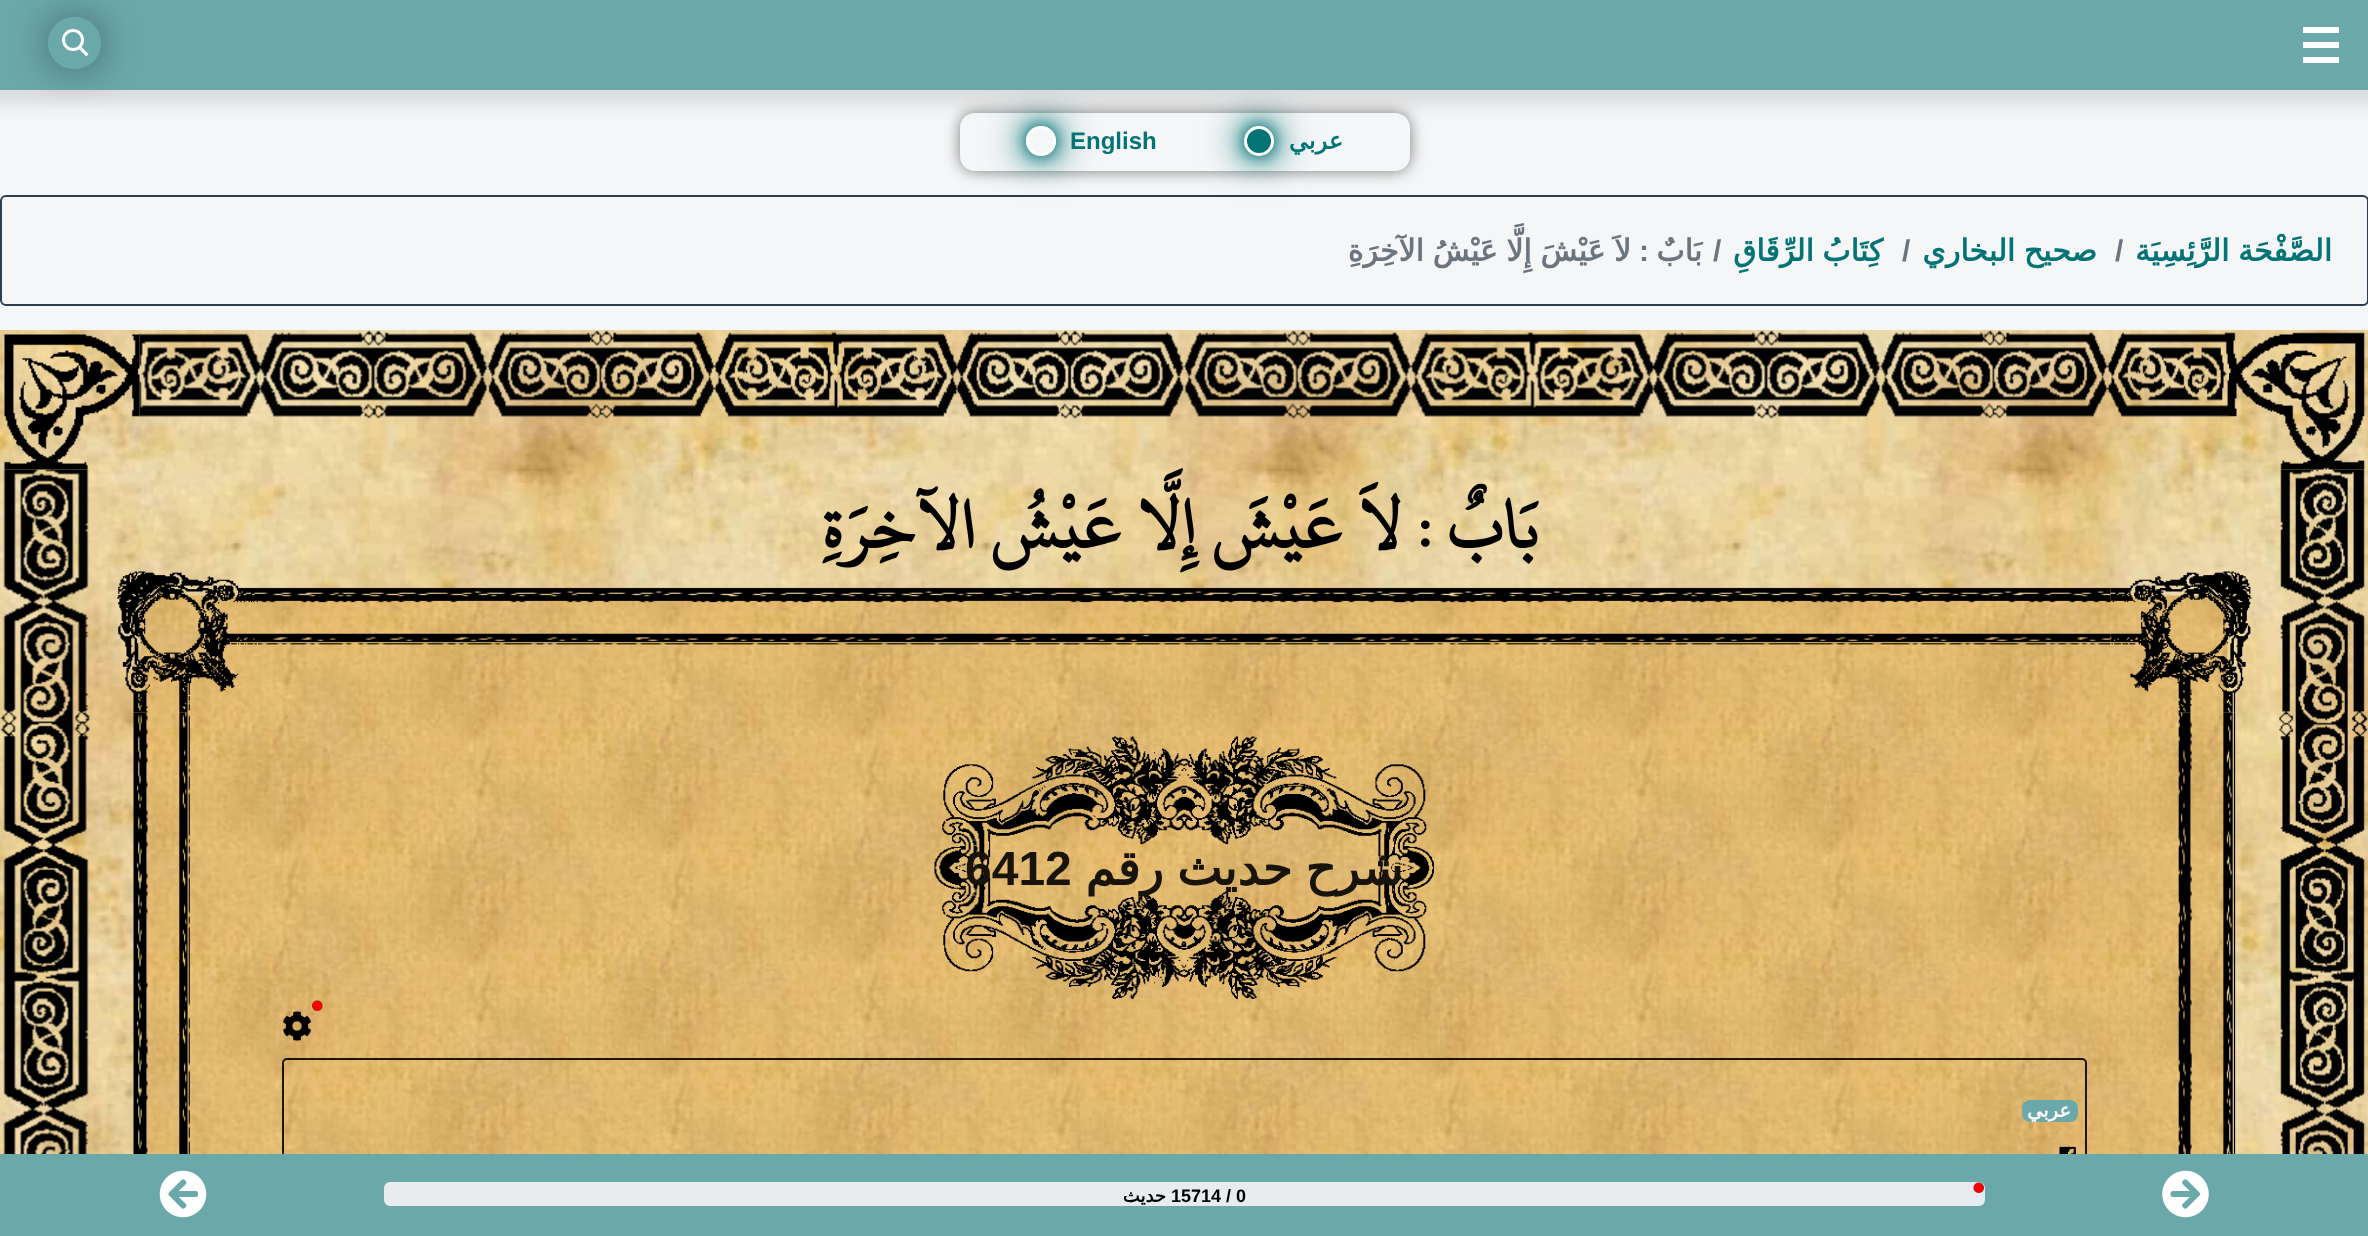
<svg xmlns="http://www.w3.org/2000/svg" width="2368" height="1236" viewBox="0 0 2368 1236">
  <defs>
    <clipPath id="clip1"><path d="M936 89H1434V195H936ZM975 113H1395C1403.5 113 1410 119.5 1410 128V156C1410 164.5 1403.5 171 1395 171H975C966.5 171 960 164.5 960 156V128C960 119.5 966.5 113 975 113Z" clip-rule="evenodd"/></clipPath>
    <clipPath id="clip2"><path d="M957 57H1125V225H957ZM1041 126C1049.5 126 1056 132.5 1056 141C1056 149.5 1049.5 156 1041 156C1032.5 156 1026 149.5 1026 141C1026 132.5 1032.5 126 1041 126Z" clip-rule="evenodd"/></clipPath>
    <clipPath id="clip3"><path d="M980 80H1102V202H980ZM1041 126C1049.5 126 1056 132.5 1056 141C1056 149.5 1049.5 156 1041 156C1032.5 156 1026 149.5 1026 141C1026 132.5 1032.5 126 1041 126Z" clip-rule="evenodd"/></clipPath>
    <clipPath id="clip4"><path d="M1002 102H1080V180H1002ZM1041 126C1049.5 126 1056 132.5 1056 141C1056 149.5 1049.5 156 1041 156C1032.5 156 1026 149.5 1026 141C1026 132.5 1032.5 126 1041 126Z" clip-rule="evenodd"/></clipPath>
    <clipPath id="clip5"><path d="M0 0H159V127H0ZM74 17H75C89.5 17 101 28.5 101 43C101 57.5 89.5 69 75 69H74C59.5 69 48 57.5 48 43C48 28.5 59.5 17 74 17Z" clip-rule="evenodd"/></clipPath>
  </defs>
  <rect width="100%" height="100%" fill="#f5f6f7"/>
  <g clip-path="url(#clip1)">
    <rect x="960" y="113" width="450" height="58" rx="15" fill="#00000080" filter="blur(7.5px)"/>
  </g>
  <rect x="1" y="196" width="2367" height="109" rx="5" fill="none" stroke="#2c3e50" stroke-width="2"/>
  <rect x="1244" y="126" width="30" height="30" rx="15" fill="#037375" filter="blur(22.5px)"/>
  <rect x="1244" y="126" width="30" height="30" rx="15" fill="#037375" filter="blur(15px)"/>
  <rect x="1244" y="126" width="30" height="30" rx="15" fill="#037375" filter="blur(7.5px)"/>
  <circle cx="1259" cy="141" r="13.5" fill="#037375" stroke="#fff" stroke-width="3"/>
  <g clip-path="url(#clip2)">
    <rect x="1026" y="126" width="30" height="30" rx="15" fill="#037375" filter="blur(22.5px)"/>
  </g>
  <g clip-path="url(#clip3)">
    <rect x="1026" y="126" width="30" height="30" rx="15" fill="#037375" filter="blur(15px)"/>
  </g>
  <g clip-path="url(#clip4)">
    <rect x="1026" y="126" width="30" height="30" rx="15" fill="#037375" filter="blur(7.5px)"/>
  </g>
  <circle cx="1041" cy="141" r="13.5" fill="none" stroke="#fff" stroke-width="3"/>
  <path d="M-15 -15h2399v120H-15z" fill="#0000001a" filter="blur(7.5px)"/>
  <path d="M0 0h2368v90H0z" fill="#6ba8a9"/>
  <path d="M2303 27h36v6H2303z" fill="#fff"/>
  <path d="M2303 57h36v6H2303z" fill="#fff"/>
  <path d="M2303 42h36v6H2303z" fill="#fff"/>
  <g clip-path="url(#clip5)">
    <rect x="48" y="17" width="53" height="52" rx="26" fill="#00000066" filter="blur(19px)"/>
  </g>
  <path d="M80 45.5L88.5 54L86.5 56.5L78 48Z" fill="#fff"/>
  <circle cx="73" cy="40" r="9.5" fill="none" stroke="#fff" stroke-width="3"/>
  <image x="0" y="330" width="2368" height="824" href="img/1.png"/>
  <image x="0" y="330" width="2368" height="824" href="img/2.png"/>
  <image x="141" y="595" width="2087" height="559" href="img/3.png"/>
  <image x="117" y="571" width="2135" height="583" href="img/4.png"/>
  <image x="934" y="736" width="500" height="263" href="img/5.png"/>
  <image x="312" y="1000" width="11" height="11" href="img/6.png"/>
  <image x="282" y="1011" width="30" height="30" href="img/7.png"/>
  <rect x="283" y="1059" width="1803" height="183" rx="4" fill="none" stroke="#000000e0" stroke-width="2"/>
  <rect x="2022" y="1100" width="56" height="22" rx="8" fill="#6ba8a9"/>
  <image x="2059" y="1146" width="17" height="8" href="img/8.png"/>
  <path d="M0 1154h2368v82H0z" fill="#6ba8a9"/>
  <image x="2162" y="1170" width="47" height="48" href="img/9.png"/>
  <rect x="384" y="1182" width="1601" height="24" rx="6" fill="#e9ecef"/>
  <image x="1973" y="1182" width="11" height="11" href="img/10.png"/>
  <image x="159" y="1170" width="48" height="48" href="img/11.png"/>
  <text x="1343" y="149" font-family="DejaVu Sans" font-size="24" font-weight="bold" direction="rtl" fill="#037375">عربي</text>
  <text x="1070" y="149" font-family="Liberation Sans" font-size="24" font-weight="bold" fill="#037375">English</text>
  <text x="2332" y="261" word-spacing="-1" font-family="DejaVu Sans" font-size="30" font-weight="bold" direction="rtl" fill="#037375">الصَّفْحَة الرَّئِسِيَة</text>
  <text x="2115" y="261" font-family="Liberation Sans" font-size="30" font-weight="bold" fill="#6c757d">/</text>
  <text x="2097" y="261" word-spacing="-1" font-family="DejaVu Sans" font-size="30" font-weight="bold" direction="rtl" fill="#037375">صحيح البخاري</text>
  <text x="1902" y="261" font-family="Liberation Sans" font-size="30" font-weight="bold" fill="#6c757d">/</text>
  <text x="1883" y="261" word-spacing="-1" font-family="DejaVu Sans" font-size="30" font-weight="bold" direction="rtl" fill="#037375">كِتَابُ الرِّقَاقِ</text>
  <text x="1713" y="261" font-family="Liberation Sans" font-size="30" font-weight="bold" fill="#6c757d">/</text>
  <text x="1702" y="261" font-family="DejaVu Sans" font-size="30" font-weight="bold" direction="rtl" fill="#6c757d">بَابٌ</text>
  <text x="1649" y="261" font-family="Liberation Sans" font-size="30" font-weight="bold" direction="rtl" fill="#6c757d">:</text>
  <text x="1631" y="261" word-spacing="-1" font-family="DejaVu Sans" font-size="30" font-weight="bold" direction="rtl" fill="#6c757d">لاَ عَيْشَ إِلَّا عَيْشُ الآخِرَةِ</text>
  <text x="1539" y="548" font-family="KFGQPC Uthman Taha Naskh" font-size="75" font-weight="bold" direction="rtl" fill="#000">بَابٌ : لاَ عَيْشَ إِلَّا عَيْشُ الآخِرَةِ</text>
  <text x="1403" y="885" word-spacing="-2" font-family="DejaVu Sans" font-size="48" font-weight="bold" direction="rtl" fill="#18140c">شرح حديث رقم</text>
  <text x="965" y="885" font-family="Liberation Sans" font-size="48" font-weight="bold" fill="#18140c">6412</text>
  <text x="2071" y="1117" font-family="DejaVu Sans" font-size="19.5" font-weight="bold" direction="rtl" fill="#fff">عربي</text>
  <text x="1171" y="1202" font-family="Liberation Sans" font-size="18" font-weight="bold" fill="#000">15714 / 0</text>
  <text x="1166" y="1202" font-family="DejaVu Sans" font-size="18" font-weight="bold" direction="rtl" fill="#000">حديث</text>
</svg>
